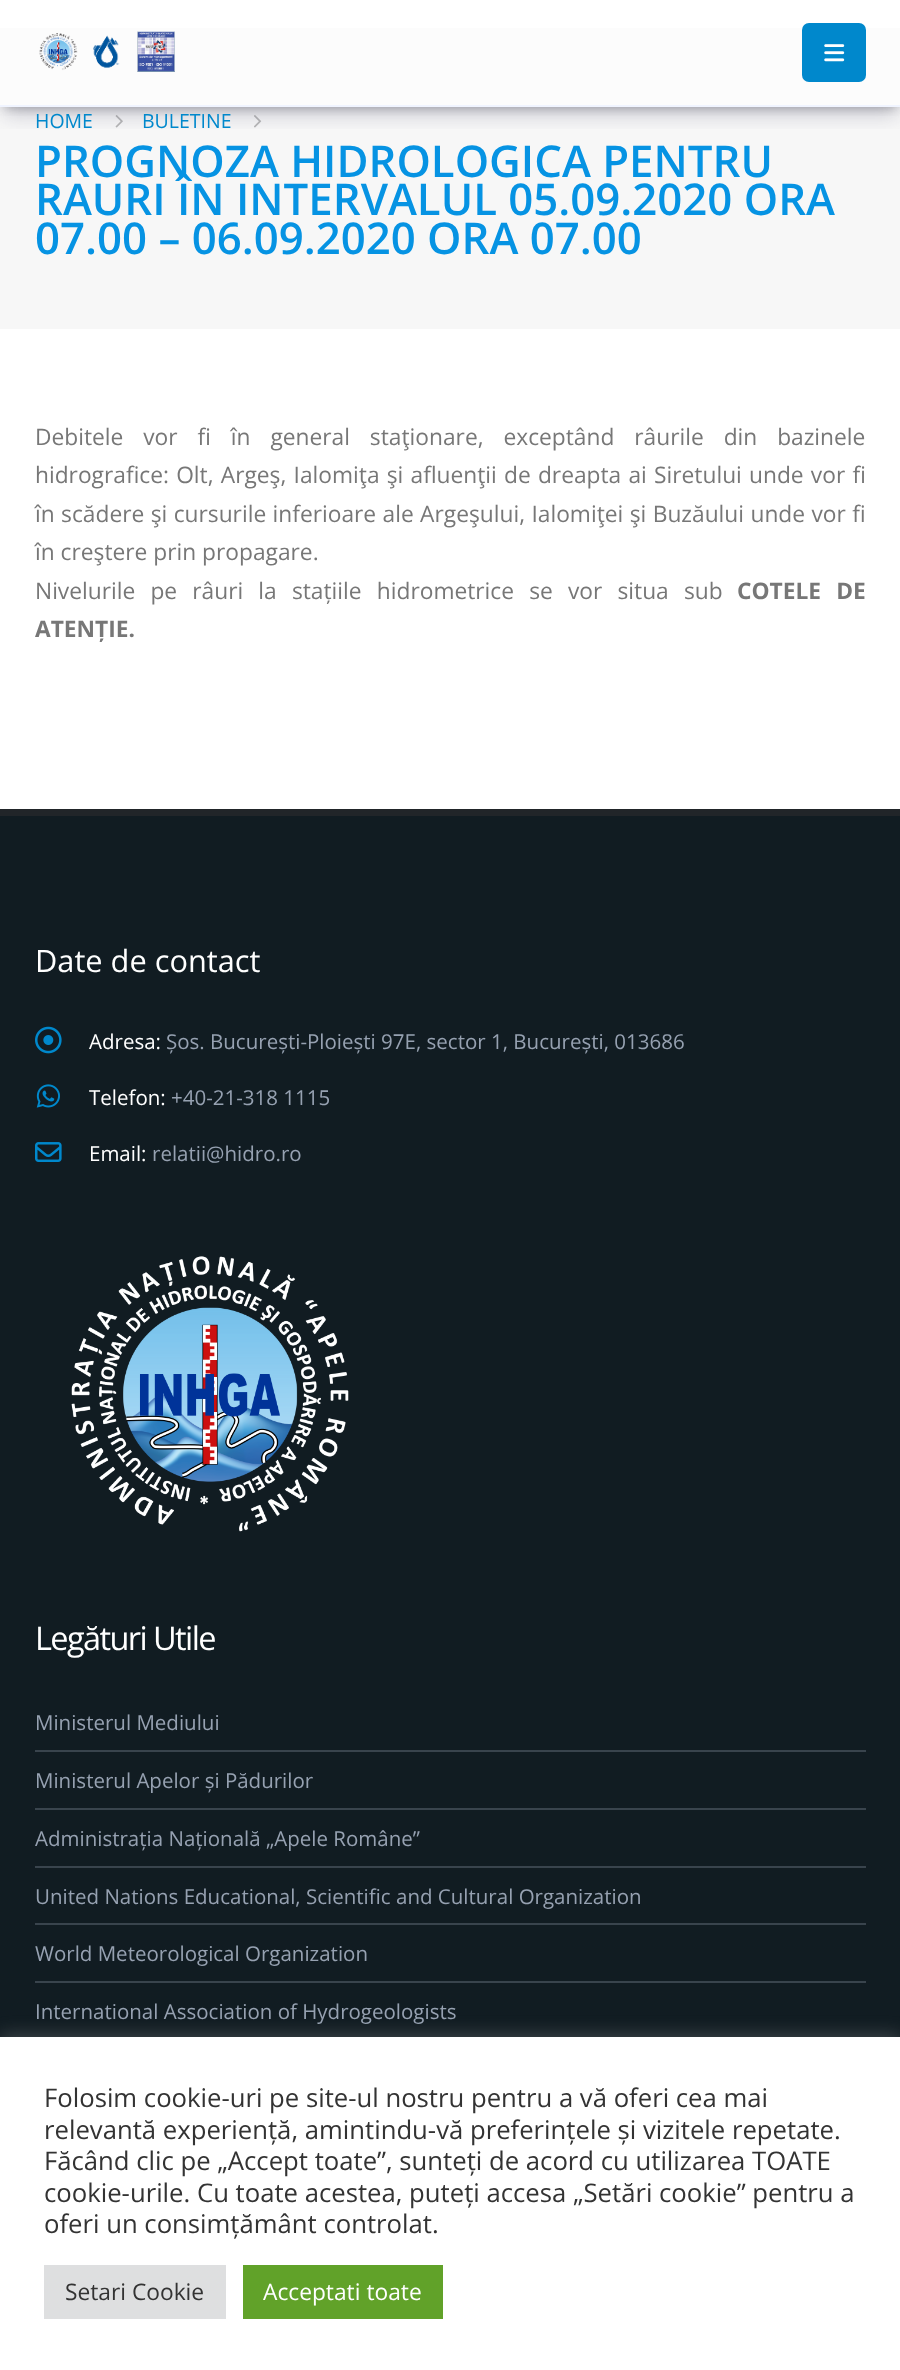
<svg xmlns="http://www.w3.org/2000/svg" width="900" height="2370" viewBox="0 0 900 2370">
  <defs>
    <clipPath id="clip1"><path d="M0 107h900v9H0z"/></clipPath>
    <clipPath id="clip2"><path d="M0 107h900v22H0z"/></clipPath>
  </defs>
  <rect width="100%" height="100%" fill="#fff"/>
  <path d="M0 28h900v301H0z" fill="#f7f7f7"/>
  <image x="115" y="115" width="8" height="13" href="img/3.png"/>
  <image x="254" y="115" width="8" height="13" href="img/4.png"/>
  <g clip-path="url(#clip1)">
    <path d="M5 11h891v96H5z" fill="#0000004d" filter="blur(6px)"/>
  </g>
  <g clip-path="url(#clip2)">
    <path d="M4 14h894v100H4z" fill="#32325d40" filter="blur(10.5px)"/>
  </g>
  <path d="M0 28h900v77H0z" fill="#ffffff99"/>
  <path d="M0 105h900v2H0z" fill="#f0f4ff"/>
  <image x="39" y="31" width="136" height="41" href="img/1.png"/>
  <rect x="802" y="23" width="64" height="59" rx="7" fill="#08c"/>
  <image x="824" y="44" width="21" height="18" href="img/2.png"/>
  <path d="M0 816h900v1221H0z" fill="#111c22"/>
  <path d="M0 809h900v7H0z" fill="#212529"/>
  <image x="35" y="1026" width="27" height="28" href="img/5.png"/>
  <image x="36" y="1084" width="24" height="24" href="img/6.png"/>
  <image x="35" y="1142" width="27" height="20" href="img/7.png"/>
  <image x="71" y="1256" width="278" height="276" href="img/8.png"/>
  <path d="M35 1750h831v2H35z" fill="#39444d"/>
  <path d="M35 1808h831v2H35z" fill="#39444d"/>
  <path d="M35 1866h831v2H35z" fill="#39444d"/>
  <path d="M35 1923h831v2H35z" fill="#39444d"/>
  <path d="M35 1981h831v2H35z" fill="#39444d"/>
  <path d="M0 2035h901v335H0z" fill="#acabab4d" filter="blur(9px)"/>
  <path d="M0 2037h900v333H0z" fill="#fff"/>
  <path d="M44 2265h182v54H44z" fill="#dedfe0"/>
  <path d="M243 2265h200v54H243z" fill="#61a229"/>
  <g font-family="Open Sans" font-size="19.5" fill="#08c">
    <text x="35" y="128">HOME</text>
    <text x="142" y="128">BULETINE</text>
  </g>
  <g font-family="Open Sans" font-size="43.75" font-weight="600" fill="#0693e3">
    <text x="35" y="177">PROGNOZA HIDROLOGICA PENTRU</text>
    <text x="35" y="215">RAURI ÎN INTERVALUL 05.09.2020 ORA</text>
    <text x="35" y="254">07.00 – 06.09.2020 ORA 07.00</text>
  </g>
  <g font-family="Open Sans" font-size="22.75" fill="#777">
    <text x="35" y="445" word-spacing="14">Debitele vor fi în general staţionare, exceptând râurile din bazinele</text>
    <text x="35" y="483" word-spacing="1.3">hidrografice: Olt, Argeş, Ialomiţa şi afluenţii de dreapta ai Siretului unde vor fi</text>
    <text x="35" y="522" word-spacing="0.5">în scădere şi cursurile inferioare ale Argeşului, Ialomiţei şi Buzăului unde vor fi</text>
    <text x="35" y="560">în creştere prin propagare.</text>
    <text x="35" y="599" word-spacing="9.25">Nivelurile pe râuri la stațiile hidrometrice se vor situa sub</text>
  </g>
  <g font-family="Open Sans" font-size="22.75" font-weight="bold" fill="#777">
    <text x="737" y="599" word-spacing="9.25">COTELE DE</text>
    <text x="35" y="637">ATENȚIE.</text>
  </g>
  <text x="35" y="972" font-family="Open Sans" font-size="30.75" fill="#fff">Date de contact</text>
  <text x="89" y="1049" font-family="Open Sans" font-size="20.5" fill="#fff">Adresa:</text>
  <text x="166" y="1049" font-family="Open Sans" font-size="20.5" fill="#96a1b1">Șos. București-Ploiești 97E, sector 1, București, 013686</text>
  <text x="89" y="1105" font-family="Open Sans" font-size="20.5" fill="#fff">Telefon:</text>
  <text x="171" y="1105" font-family="Open Sans" font-size="20.5" fill="#96a1b1">+40-21-318 1115</text>
  <text x="89" y="1161" font-family="Open Sans" font-size="20.5" fill="#fff">Email:</text>
  <text x="152" y="1161" font-family="Open Sans" font-size="20.5" fill="#96a1b1">relatii@hidro.ro</text>
  <text x="35" y="1650" font-family="Open Sans" font-size="32.5" letter-spacing="-1.6" fill="#fff">Legături Utile</text>
  <g font-family="Open Sans" font-size="20.5" fill="#96a1b1">
    <text x="35" y="1730">Ministerul Mediului</text>
    <text x="35" y="1788">Ministerul Apelor și Pădurilor</text>
    <text x="35" y="1846">Administrația Națională „Apele Române”</text>
    <text x="35" y="1904">United Nations Educational, Scientific and Cultural Organization</text>
    <text x="35" y="1961">World Meteorological Organization</text>
    <text x="35" y="2019">International Association of Hydrogeologists</text>
  </g>
  <g font-family="Open Sans" font-size="25.7" fill="#333">
    <text x="44" y="2107">Folosim cookie-uri pe site-ul nostru pentru a vă oferi cea mai</text>
    <text x="44" y="2139">relevantă experiență, amintindu-vă preferințele și vizitele repetate.</text>
    <text x="44" y="2170">Făcând clic pe „Accept toate”, sunteți de acord cu utilizarea TOATE</text>
    <text x="44" y="2202">cookie-urile. Cu toate acestea, puteți accesa „Setări cookie” pentru a</text>
    <text x="44" y="2233">oferi un consimțământ controlat.</text>
  </g>
  <text x="65" y="2300" font-family="Open Sans" font-size="22.75" fill="#333">Setari Cookie</text>
  <text x="263" y="2300" font-family="Open Sans" font-size="22.75" fill="#fff">Acceptati toate</text>
</svg>
